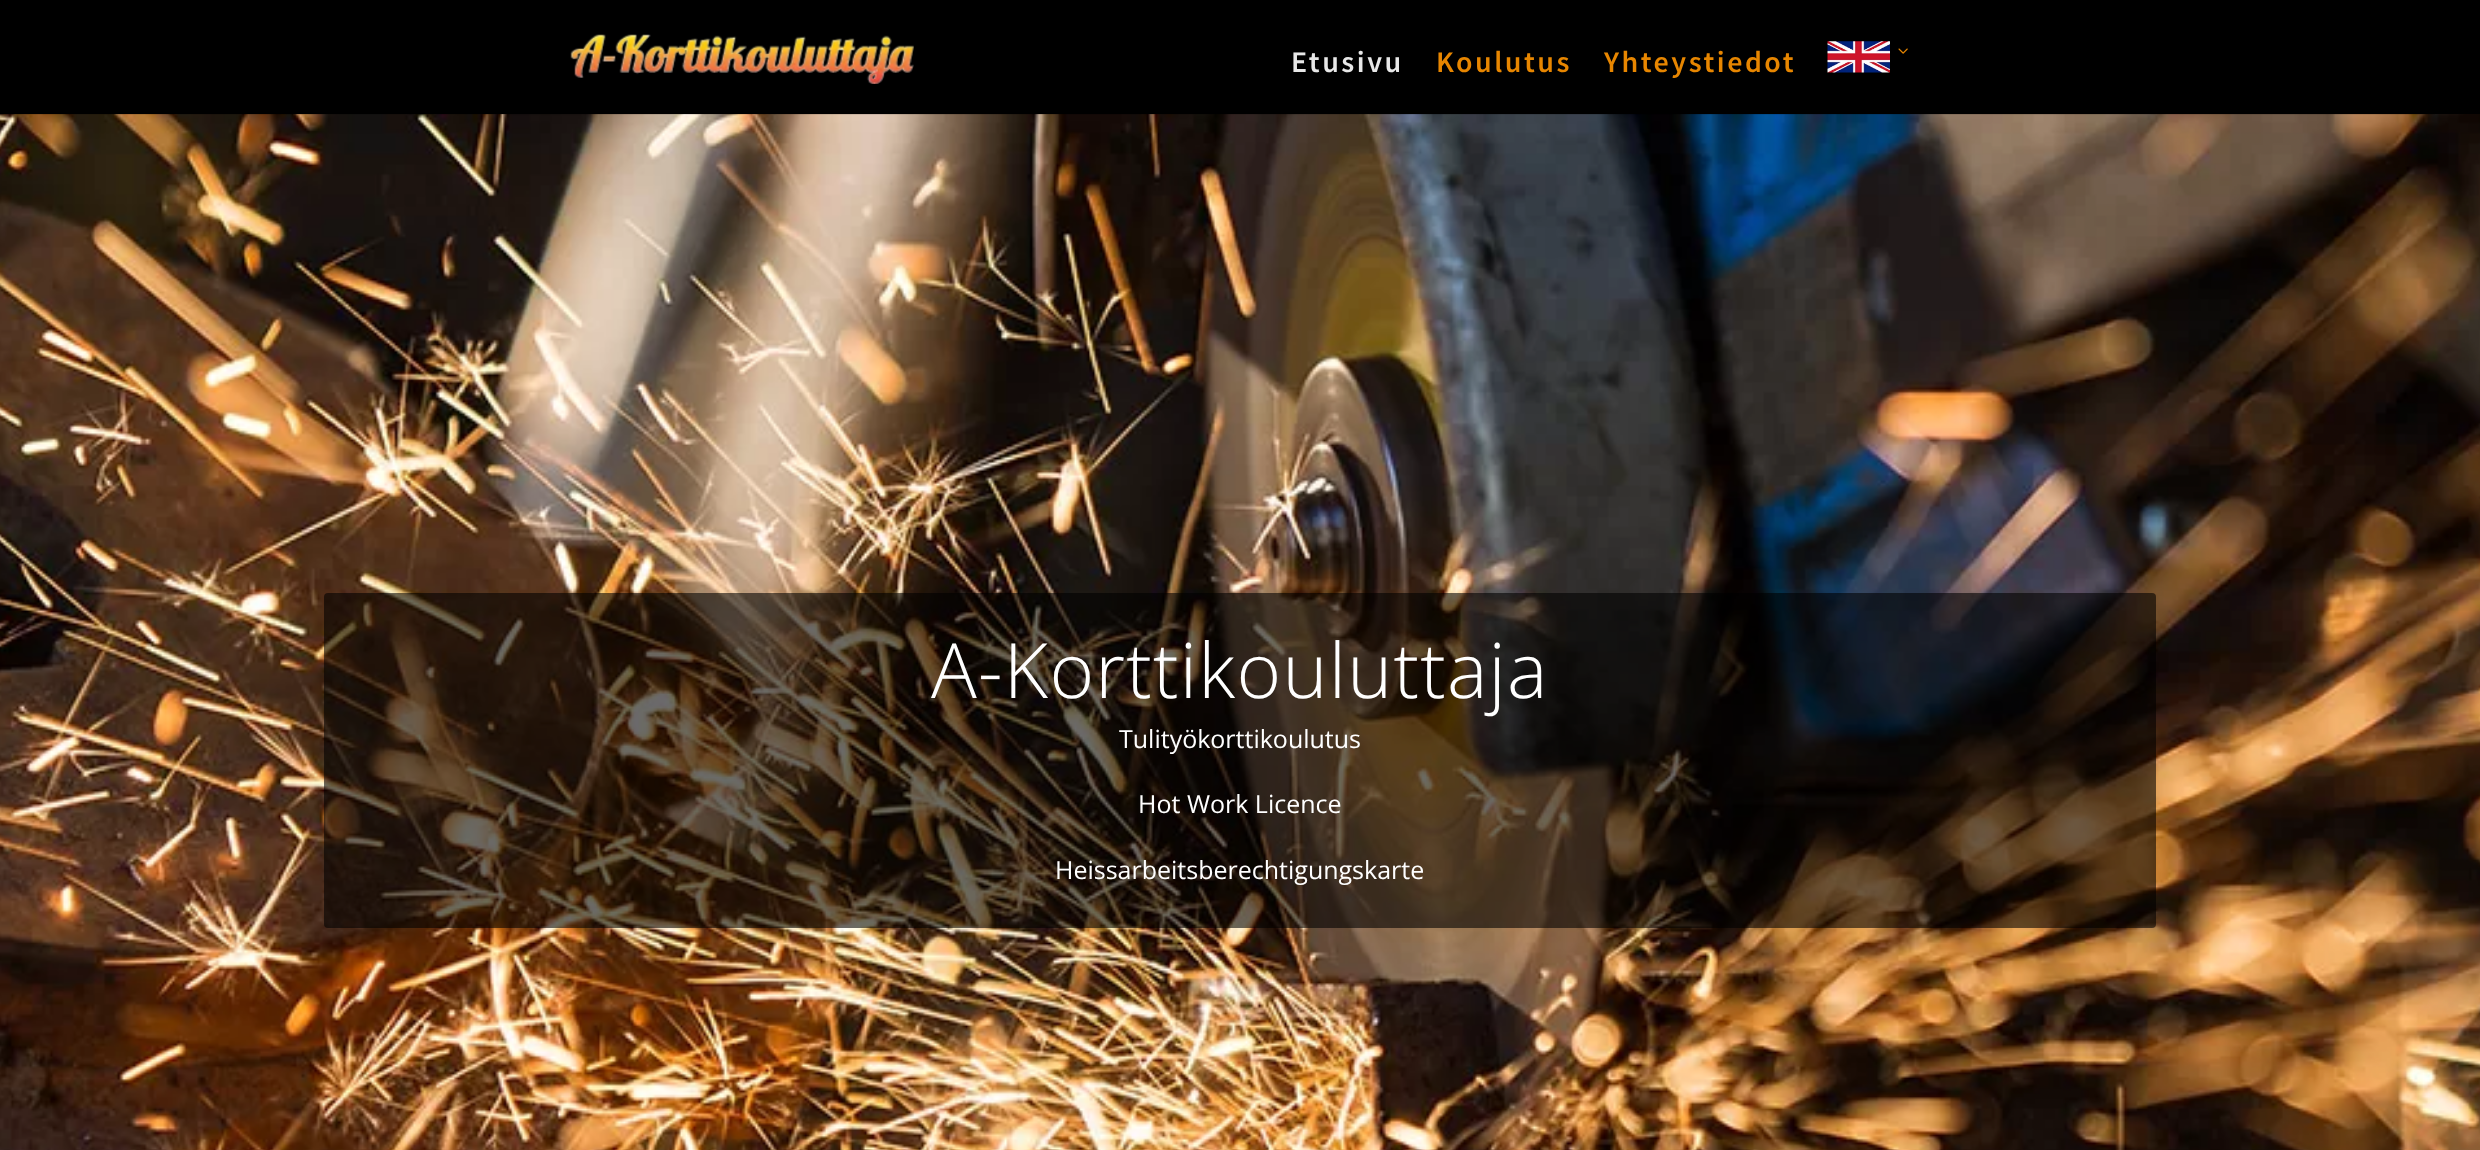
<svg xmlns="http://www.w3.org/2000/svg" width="2480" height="1150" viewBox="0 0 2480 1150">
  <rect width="100%" height="100%" fill="#fff"/>
  <image x="0" y="114" width="2480" height="1036" href="img/4.png"/>
  <path d="M0 114h2435v1H0z" fill="#0000001a"/>
  <path d="M0 0h2480v114H0z" fill="#000"/>
  <image x="570" y="34" width="344" height="50" href="img/1.png"/>
  <image x="1827" y="41" width="63" height="32" href="img/2.png"/>
  <image x="1898" y="48" width="10" height="6" href="img/3.png"/>
  <rect x="324" y="593" width="1832" height="335" rx="4" fill="#00000094"/>
  <text x="1291" y="72" font-family="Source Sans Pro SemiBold" font-size="30" font-weight="600" letter-spacing="2.5" fill="#e8e8e8">Etusivu</text>
  <g font-family="Source Sans Pro SemiBold" font-size="30" font-weight="600" letter-spacing="2.5" fill="#e78600">
    <text x="1436" y="72">Koulutus</text>
    <text x="1604" y="72">Yhteystiedot</text>
  </g>
  <text x="931" y="698" font-family="Open Sans" font-size="76.25" font-weight="300" letter-spacing="1.25" fill="#fff">A-Korttikouluttaja</text>
  <g font-family="Open Sans" font-size="25" fill="#fff">
    <text x="1119" y="748">Tulityökorttikoulutus</text>
    <text x="1138" y="813">Hot Work Licence</text>
    <text x="1055" y="879">Heissarbeitsberechtigungskarte</text>
  </g>
</svg>
